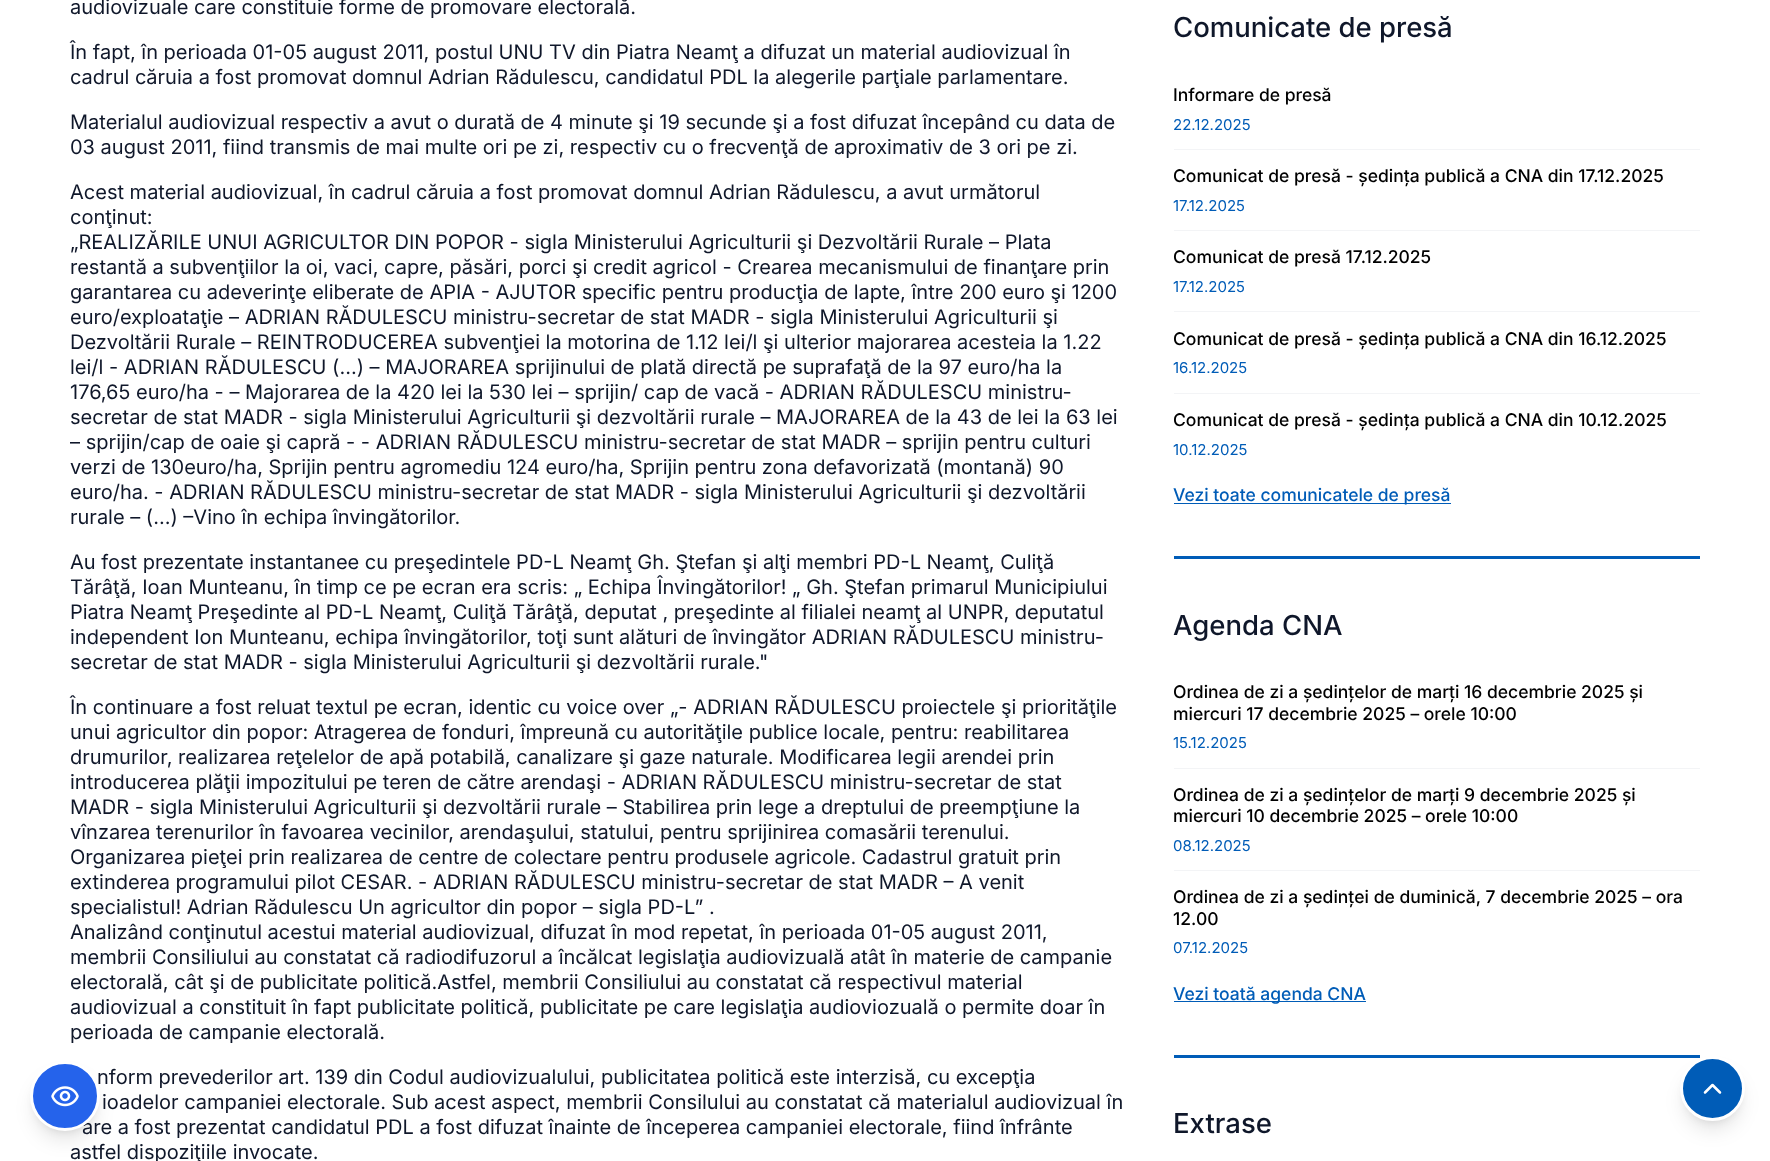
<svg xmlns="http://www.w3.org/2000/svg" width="1770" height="1161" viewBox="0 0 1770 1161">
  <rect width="100%" height="100%" fill="#fff"/>
  <rect x="35" y="1071" width="60" height="60" rx="30" fill="#0000001a" filter="blur(4px)"/>
  <rect x="34" y="1078" width="62" height="62" rx="31" fill="#0000001a" filter="blur(9.5px)"/>
  <path d="M1174 149h526v1H1174z" fill="#f3f4f6"/>
  <path d="M1174 230h526v1H1174z" fill="#f3f4f6"/>
  <path d="M1174 311h526v1H1174z" fill="#f3f4f6"/>
  <path d="M1174 393h526v1H1174z" fill="#f3f4f6"/>
  <path d="M1174 503h277v1H1174z" fill="#005cb7"/>
  <path d="M1174 556h526v3H1174z" fill="#005cb7"/>
  <path d="M1174 768h526v1H1174z" fill="#f3f4f6"/>
  <path d="M1174 870h526v1H1174z" fill="#f3f4f6"/>
  <path d="M1174 1001h192v1H1174z" fill="#005cb7"/>
  <path d="M1174 1055h526v3H1174z" fill="#005cb7"/>
  <rect x="1685" y="1066" width="55" height="55" rx="27.5" fill="#0000001a" filter="blur(4px)"/>
  <rect x="1684" y="1073" width="57" height="57" rx="28.5" fill="#0000001a" filter="blur(9.5px)"/>
  <circle cx="1712.5" cy="1088.5" r="31" fill="#005cb7" stroke="#fff" stroke-width="3"/>
  <path d="M1720 1092.5L1712.5 1085L1705 1092.5" fill="none" stroke="#fff" stroke-width="2.5" stroke-linecap="round" stroke-linejoin="round"/>
  <g font-family="Inter" font-size="20" fill="#0f172a">
    <text x="70" y="14">audiovizuale care constituie forme de promovare electorală.</text>
    <text x="70" y="59">În fapt, în perioada 01-05 august 2011, postul UNU TV din Piatra Neamţ a difuzat un material audiovizual în</text>
    <text x="70" y="84">cadrul căruia a fost promovat domnul Adrian Rădulescu, candidatul PDL la alegerile parţiale parlamentare.</text>
    <text x="70" y="129">Materialul audiovizual respectiv a avut o durată de 4 minute şi 19 secunde şi a fost difuzat începând cu data de</text>
    <text x="70" y="154">03 august 2011, fiind transmis de mai multe ori pe zi, respectiv cu o frecvenţă de aproximativ de 3 ori pe zi.</text>
    <text x="70" y="199">Acest material audiovizual, în cadrul căruia a fost promovat domnul Adrian Rădulescu, a avut următorul</text>
    <text x="70" y="224">conţinut:</text>
    <text x="70" y="249">„REALIZĂRILE UNUI AGRICULTOR DIN POPOR - sigla Ministerului Agriculturii şi Dezvoltării Rurale – Plata</text>
    <text x="70" y="274">restantă a subvenţiilor la oi, vaci, capre, păsări, porci şi credit agricol - Crearea mecanismului de finanţare prin</text>
    <text x="70" y="299">garantarea cu adeverinţe eliberate de APIA - AJUTOR specific pentru producţia de lapte, între 200 euro şi 1200</text>
    <text x="70" y="324">euro/exploataţie – ADRIAN RĂDULESCU ministru-secretar de stat MADR - sigla Ministerului Agriculturii şi</text>
    <text x="70" y="349">Dezvoltării Rurale – REINTRODUCEREA subvenţiei la motorina de 1.12 lei/l şi ulterior majorarea acesteia la 1.22</text>
    <text x="70" y="374">lei/l - ADRIAN RĂDULESCU (...) – MAJORAREA sprijinului de plată directă pe suprafaţă de la 97 euro/ha la</text>
    <text x="70" y="399">176,65 euro/ha - – Majorarea de la 420 lei la 530 lei – sprijin/ cap de vacă - ADRIAN RĂDULESCU ministru-</text>
    <text x="70" y="424">secretar de stat MADR - sigla Ministerului Agriculturii şi dezvoltării rurale – MAJORAREA de la 43 de lei la 63 lei</text>
    <text x="70" y="449">– sprijin/cap de oaie şi capră - - ADRIAN RĂDULESCU ministru-secretar de stat MADR – sprijin pentru culturi</text>
    <text x="70" y="474">verzi de 130euro/ha, Sprijin pentru agromediu 124 euro/ha, Sprijin pentru zona defavorizată (montană) 90</text>
    <text x="70" y="499">euro/ha. - ADRIAN RĂDULESCU ministru-secretar de stat MADR - sigla Ministerului Agriculturii şi dezvoltării</text>
    <text x="70" y="524">rurale – (...) –Vino în echipa învingătorilor.</text>
    <text x="70" y="569">Au fost prezentate instantanee cu preşedintele PD-L Neamţ Gh. Ştefan şi alţi membri PD-L Neamţ, Culiţă</text>
    <text x="70" y="594">Tărâţă, Ioan Munteanu, în timp ce pe ecran era scris: „ Echipa Învingătorilor! „ Gh. Ştefan primarul Municipiului</text>
    <text x="70" y="619">Piatra Neamţ Preşedinte al PD-L Neamţ, Culiţă Tărâţă, deputat , preşedinte al filialei neamţ al UNPR, deputatul</text>
    <text x="70" y="644">independent Ion Munteanu, echipa învingătorilor, toţi sunt alături de învingător ADRIAN RĂDULESCU ministru-</text>
    <text x="70" y="669">secretar de stat MADR - sigla Ministerului Agriculturii şi dezvoltării rurale."</text>
    <text x="70" y="714">În continuare a fost reluat textul pe ecran, identic cu voice over „- ADRIAN RĂDULESCU proiectele şi priorităţile</text>
    <text x="70" y="739">unui agricultor din popor: Atragerea de fonduri, împreună cu autorităţile publice locale, pentru: reabilitarea</text>
    <text x="70" y="764">drumurilor, realizarea reţelelor de apă potabilă, canalizare şi gaze naturale. Modificarea legii arendei prin</text>
    <text x="70" y="789">introducerea plăţii impozitului pe teren de către arendaşi - ADRIAN RĂDULESCU ministru-secretar de stat</text>
    <text x="70" y="814">MADR - sigla Ministerului Agriculturii şi dezvoltării rurale – Stabilirea prin lege a dreptului de preempţiune la</text>
    <text x="70" y="839">vînzarea terenurilor în favoarea vecinilor, arendaşului, statului, pentru sprijinirea comasării terenului.</text>
    <text x="70" y="864">Organizarea pieţei prin realizarea de centre de colectare pentru produsele agricole. Cadastrul gratuit prin</text>
    <text x="70" y="889">extinderea programului pilot CESAR. - ADRIAN RĂDULESCU ministru-secretar de stat MADR – A venit</text>
    <text x="70" y="914">specialistul! Adrian Rădulescu Un agricultor din popor – sigla PD-L” .</text>
    <text x="70" y="939">Analizând conţinutul acestui material audiovizual, difuzat în mod repetat, în perioada 01-05 august 2011,</text>
    <text x="70" y="964">membrii Consiliului au constatat că radiodifuzorul a încălcat legislaţia audiovizuală atât în materie de campanie</text>
    <text x="70" y="989">electorală, cât şi de publicitate politică.Astfel, membrii Consiliului au constatat că respectivul material</text>
    <text x="70" y="1014">audiovizual a constituit în fapt publicitate politică, publicitate pe care legislaţia audioviozuală o permite doar în</text>
    <text x="70" y="1039">perioada de campanie electorală.</text>
    <text x="97" y="1084">nform prevederilor art. 139 din Codul audiovizualului, publicitatea politică este interzisă, cu excepţia</text>
    <text x="102" y="1109">ioadelor campaniei electorale. Sub acest aspect, membrii Consilului au constatat că materialul audiovizual în</text>
    <text x="82" y="1134">are a fost prezentat candidatul PDL a fost difuzat înainte de începerea campaniei electorale, fiind înfrânte</text>
  </g>
  <circle cx="65" cy="1096" r="33.5" fill="#2563eb" stroke="#fff" stroke-width="3"/>
  <image x="51" y="1086" width="28" height="21" href="img/1.png"/>
  <text x="70" y="1159" font-family="Inter" font-size="20" fill="#0f172a">astfel dispoziţiile invocate.</text>
  <text x="1173" y="37" font-family="Inter" font-size="27.5" font-weight="500" fill="#0f172a">Comunicate de presă</text>
  <text x="1173" y="101" font-family="Inter" font-size="17.5" font-weight="500" fill="#000">Informare de presă</text>
  <text x="1173" y="130" font-family="Inter" font-size="15" fill="#005cb7">22.12.2025</text>
  <text x="1173" y="182" font-family="Inter" font-size="17.5" font-weight="500" fill="#000">Comunicat de presă - ședința publică a CNA din 17.12.2025</text>
  <text x="1173" y="211" font-family="Inter" font-size="15" fill="#005cb7">17.12.2025</text>
  <text x="1173" y="263" font-family="Inter" font-size="17.5" font-weight="500" fill="#000">Comunicat de presă 17.12.2025</text>
  <text x="1173" y="292" font-family="Inter" font-size="15" fill="#005cb7">17.12.2025</text>
  <text x="1173" y="345" font-family="Inter" font-size="17.5" font-weight="500" fill="#000">Comunicat de presă - ședința publică a CNA din 16.12.2025</text>
  <text x="1173" y="373" font-family="Inter" font-size="15" fill="#005cb7">16.12.2025</text>
  <text x="1173" y="426" font-family="Inter" font-size="17.5" font-weight="500" fill="#000">Comunicat de presă - ședința publică a CNA din 10.12.2025</text>
  <text x="1173" y="455" font-family="Inter" font-size="15" fill="#005cb7">10.12.2025</text>
  <text x="1173" y="501" font-family="Inter" font-size="17.5" font-weight="500" fill="#005cb7">Vezi toate comunicatele de presă</text>
  <text x="1173" y="635" font-family="Inter" font-size="27.5" font-weight="500" fill="#0f172a">Agenda CNA</text>
  <g font-family="Inter" font-size="17.5" font-weight="500" fill="#000">
    <text x="1173" y="698">Ordinea de zi a ședințelor de marți 16 decembrie 2025 și</text>
    <text x="1173" y="720">miercuri 17 decembrie 2025 – orele 10:00</text>
  </g>
  <text x="1173" y="748" font-family="Inter" font-size="15" fill="#005cb7">15.12.2025</text>
  <g font-family="Inter" font-size="17.5" font-weight="500" fill="#000">
    <text x="1173" y="801">Ordinea de zi a ședințelor de marți 9 decembrie 2025 și</text>
    <text x="1173" y="822">miercuri 10 decembrie 2025 – orele 10:00</text>
  </g>
  <text x="1173" y="851" font-family="Inter" font-size="15" fill="#005cb7">08.12.2025</text>
  <g font-family="Inter" font-size="17.5" font-weight="500" fill="#000">
    <text x="1173" y="903">Ordinea de zi a ședinței de duminică, 7 decembrie 2025 – ora</text>
    <text x="1173" y="925">12.00</text>
  </g>
  <text x="1173" y="953" font-family="Inter" font-size="15" fill="#005cb7">07.12.2025</text>
  <text x="1173" y="1000" font-family="Inter" font-size="17.5" font-weight="500" fill="#005cb7">Vezi toată agenda CNA</text>
  <text x="1173" y="1133" font-family="Inter" font-size="27.5" font-weight="500" fill="#0f172a">Extrase</text>
</svg>
